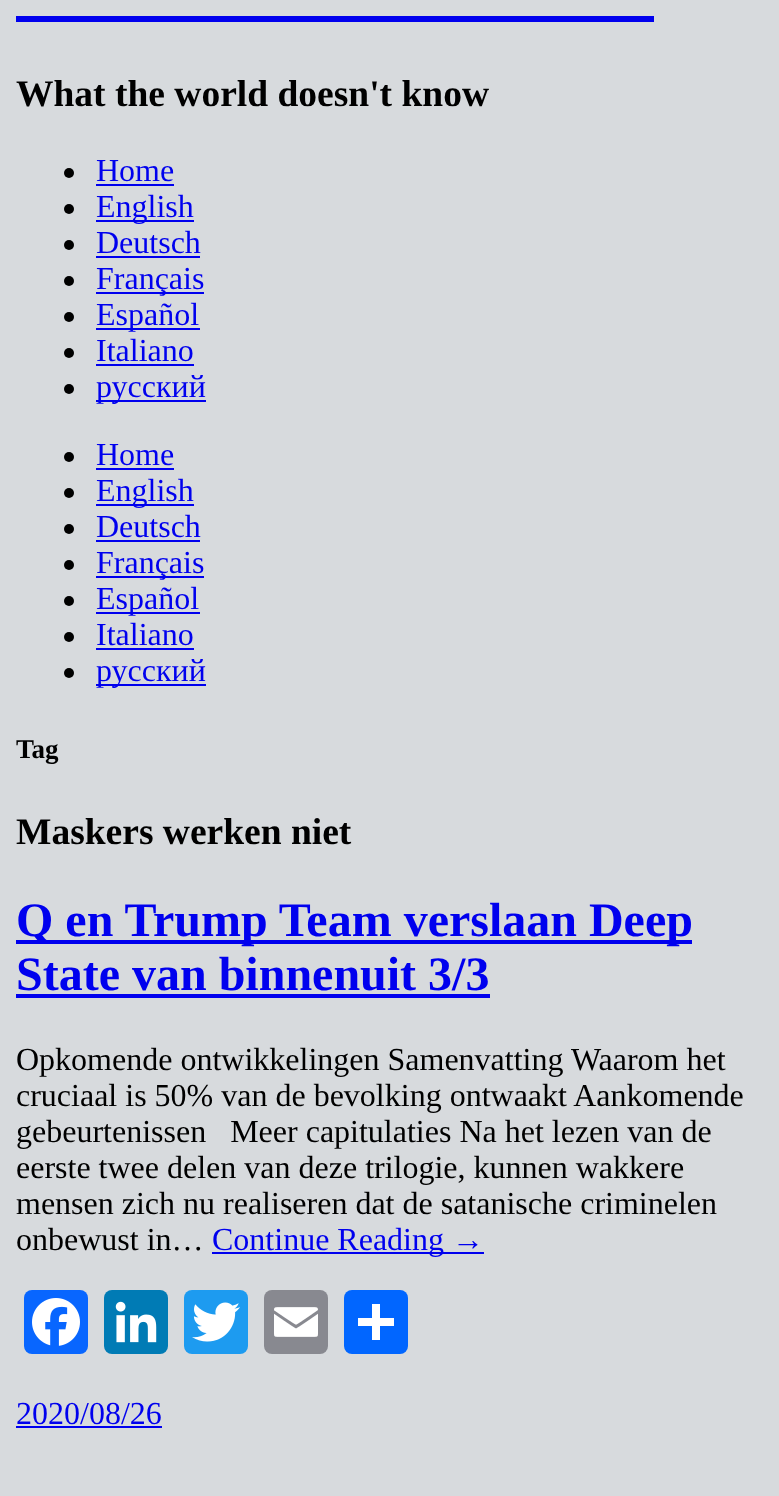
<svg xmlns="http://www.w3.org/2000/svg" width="779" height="1496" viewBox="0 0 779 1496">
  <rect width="100%" height="100%" fill="#d7dadd"/>
  <path d="M16 16h638v6H16z" fill="#00e"/>
  <circle cx="69" cy="173" r="5" fill="#000"/>
  <path d="M96 184h78v2H96z" fill="#00e"/>
  <circle cx="69" cy="209" r="5" fill="#000"/>
  <path d="M96 220h98v2H96z" fill="#00e"/>
  <circle cx="69" cy="245" r="5" fill="#000"/>
  <path d="M96 256h104v2H96z" fill="#00e"/>
  <circle cx="69" cy="281" r="5" fill="#000"/>
  <path d="M96 292h108v2H96z" fill="#00e"/>
  <circle cx="69" cy="317" r="5" fill="#000"/>
  <path d="M96 328h104v2H96z" fill="#00e"/>
  <circle cx="69" cy="353" r="5" fill="#000"/>
  <path d="M96 364h98v2H96z" fill="#00e"/>
  <circle cx="69" cy="389" r="5" fill="#000"/>
  <path d="M96 400h110v2H96z" fill="#00e"/>
  <circle cx="69" cy="457" r="5" fill="#000"/>
  <path d="M96 468h78v2H96z" fill="#00e"/>
  <circle cx="69" cy="493" r="5" fill="#000"/>
  <path d="M96 504h98v2H96z" fill="#00e"/>
  <circle cx="69" cy="529" r="5" fill="#000"/>
  <path d="M96 540h104v2H96z" fill="#00e"/>
  <circle cx="69" cy="565" r="5" fill="#000"/>
  <path d="M96 576h108v2H96z" fill="#00e"/>
  <circle cx="69" cy="601" r="5" fill="#000"/>
  <path d="M96 612h104v2H96z" fill="#00e"/>
  <circle cx="69" cy="637" r="5" fill="#000"/>
  <path d="M96 648h98v2H96z" fill="#00e"/>
  <circle cx="69" cy="673" r="5" fill="#000"/>
  <path d="M96 684h110v2H96z" fill="#00e"/>
  <path d="M16 940h676v4H16z" fill="#00e"/>
  <path d="M16 994h474v4H16z" fill="#00e"/>
  <path d="M212 1252h272v2H212z" fill="#00e"/>
  <rect x="24" y="1290" width="64" height="64" rx="8" fill="#0866ff"/>
  <image x="32" y="1298" width="48" height="48" href="img/1.png"/>
  <rect x="104" y="1290" width="64" height="64" rx="8" fill="#007bb5"/>
  <image x="115" y="1301" width="42" height="42" href="img/2.png"/>
  <rect x="184" y="1290" width="64" height="64" rx="8" fill="#1d9bf0"/>
  <image x="192" y="1302" width="48" height="40" href="img/3.png"/>
  <rect x="264" y="1290" width="64" height="64" rx="8" fill="#888990"/>
  <image x="274" y="1307" width="44" height="30" href="img/4.png"/>
  <rect x="344" y="1290" width="64" height="64" rx="8" fill="#0166ff"/>
  <path d="M372 1304h8v36H372z" fill="#fff"/>
  <path d="M358 1318h36v8H358z" fill="#fff"/>
  <path d="M16 1426h146v2H16z" fill="#00e"/>
  <text x="16" y="106" font-family="Liberation Serif" font-size="37.5" font-weight="bold" fill="#000">What the world doesn't know</text>
  <g font-family="Liberation Serif" font-size="32" fill="#00e">
    <text x="96" y="181">Home</text>
    <text x="96" y="217">English</text>
    <text x="96" y="253">Deutsch</text>
    <text x="96" y="289">Français</text>
    <text x="96" y="325">Español</text>
    <text x="96" y="361">Italiano</text>
    <text x="96" y="397">русский</text>
    <text x="96" y="465">Home</text>
    <text x="96" y="501">English</text>
    <text x="96" y="537">Deutsch</text>
    <text x="96" y="573">Français</text>
    <text x="96" y="609">Español</text>
    <text x="96" y="645">Italiano</text>
    <text x="96" y="681">русский</text>
  </g>
  <text x="16" y="758" font-family="Liberation Serif" font-size="27" font-weight="bold" fill="#000">Tag</text>
  <text x="16" y="844" font-family="Liberation Serif" font-size="37.5" font-weight="bold" fill="#000">Maskers werken niet</text>
  <g font-family="Liberation Serif" font-size="48" font-weight="bold" fill="#00e">
    <text x="16" y="936">Q en Trump Team verslaan Deep</text>
    <text x="16" y="990">State van binnenuit 3/3</text>
  </g>
  <g font-family="Liberation Serif" font-size="32" fill="#000">
    <text x="16" y="1070">Opkomende ontwikkelingen Samenvatting Waarom het</text>
    <text x="16" y="1106">cruciaal is 50% van de bevolking ontwaakt Aankomende</text>
    <text x="16" y="1142" xml:space="preserve">gebeurtenissen   Meer capitulaties Na het lezen van de</text>
    <text x="16" y="1178">eerste twee delen van deze trilogie, kunnen wakkere</text>
    <text x="16" y="1214">mensen zich nu realiseren dat de satanische criminelen</text>
    <text x="16" y="1250">onbewust in…</text>
  </g>
  <g font-family="Liberation Serif" font-size="32" fill="#00e">
    <text x="212" y="1250">Continue Reading →</text>
    <text x="16" y="1424">2020/08/26</text>
  </g>
</svg>
